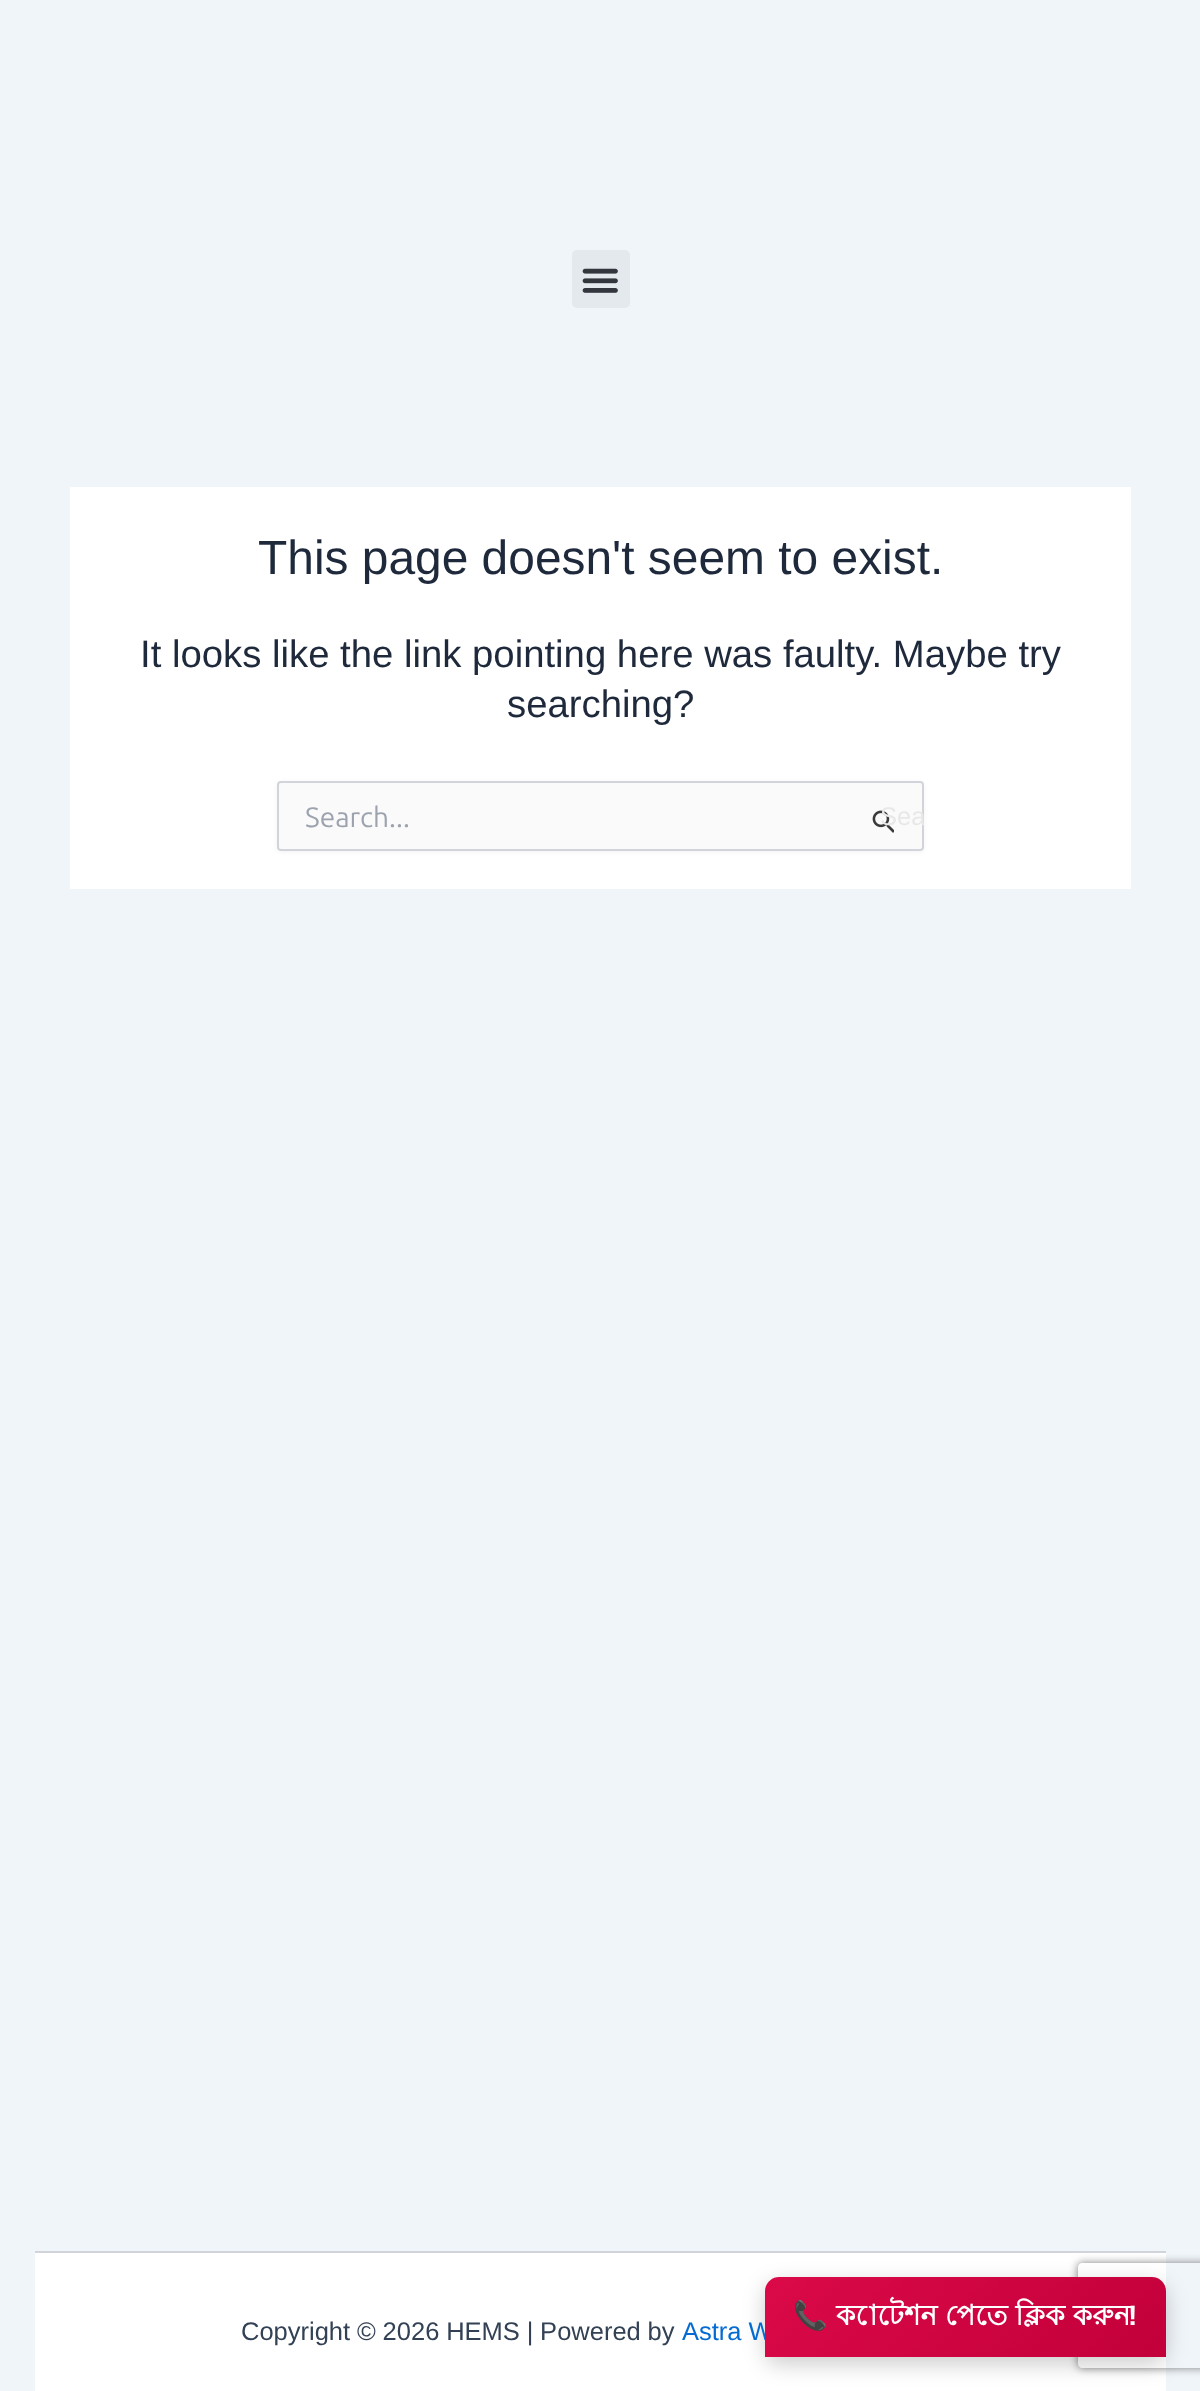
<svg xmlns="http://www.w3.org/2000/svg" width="1200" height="2391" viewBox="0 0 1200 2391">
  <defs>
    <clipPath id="clip1"><path d="M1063 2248H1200V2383H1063ZM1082 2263H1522C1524 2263 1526 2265 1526 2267V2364C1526 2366 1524 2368 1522 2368H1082C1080 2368 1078 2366 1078 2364V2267C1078 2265 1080 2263 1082 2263Z" clip-rule="evenodd"/></clipPath>
    <clipPath id="clip2"><rect x="845" y="781" width="79" height="71" rx="4"/></clipPath>
    <linearGradient id="g1" gradientUnits="userSpaceOnUse" x1="845" y1="2197" x2="1085" y2="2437"><stop offset="0" stop-color="#db0948"/><stop offset="1" stop-color="#c2003a"/></linearGradient>
  </defs>
  <rect width="100%" height="100%" fill="#f0f5fa"/>
  <rect x="572" y="250" width="58" height="58" rx="5" fill="#e4e9ee"/>
  <image x="582" y="268" width="36" height="25" href="img/1.png"/>
  <path d="M70 487h1061v402H70z" fill="#fff"/>
  <rect x="277" y="782" width="647" height="70" rx="4" fill="#0000000d" filter="blur(2px)"/>
  <rect x="278" y="782" width="645" height="68" rx="3" fill="#fafafa" stroke="#d1d5db" stroke-width="2"/>
  <image x="872" y="810" width="22" height="23" href="img/2.png"/>
  <path d="M35 2253h1131v138H35z" fill="#fff"/>
  <path d="M35 2251h1131v2H35z" fill="#d1d5db"/>
  <g clip-path="url(#clip1)">
    <rect x="1078" y="2263" width="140" height="105" rx="4" fill="#808080" filter="blur(4.5px)"/>
  </g>
  <rect x="765" y="2284" width="401" height="80" rx="14" fill="#00000033" filter="blur(10.5px)"/>
  <text x="258" y="574" font-family="Liberation Sans" font-size="47.9" fill="#1e293b">This page doesn't seem to exist.</text>
  <g font-family="Liberation Sans" font-size="38.3" fill="#1e293b">
    <text x="140" y="667">It looks like the link pointing here was faulty. Maybe try</text>
    <text x="507" y="717">searching?</text>
  </g>
  <text x="305" y="827" font-family="Ubuntu" font-size="28" fill="#9ca3af">Search...</text>
  <g clip-path="url(#clip2)">
    <text x="880" y="825" font-family="Liberation Sans" font-size="25.5" fill="#e8e8e8">Sea</text>
  </g>
  <text x="241" y="2340" word-spacing="-0.25" font-family="Liberation Sans" font-size="25.5" fill="#334155">Copyright © 2026 HEMS | Powered by</text>
  <text x="682" y="2340" font-family="Liberation Sans" font-size="25.5" fill="#046bd2">Astra W</text>
  <path d="M779 2277H1152C1159.5 2277 1166 2283.5 1166 2291V2357H765V2291C765 2283.5 771.5 2277 779 2277Z" fill="url(#g1)"/>
  <text x="793" y="2325" font-family="Noto Color Emoji" font-size="28" font-weight="bold" fill="#fff">📞</text>
  <text x="836" y="2325" font-family="Lohit Bengali" font-size="28" font-weight="bold" fill="#fff">কোটেশন পেতে ক্লিক করুন</text>
  <text x="1128" y="2325" font-family="Liberation Sans" font-size="28" font-weight="bold" fill="#fff">!</text>
</svg>
